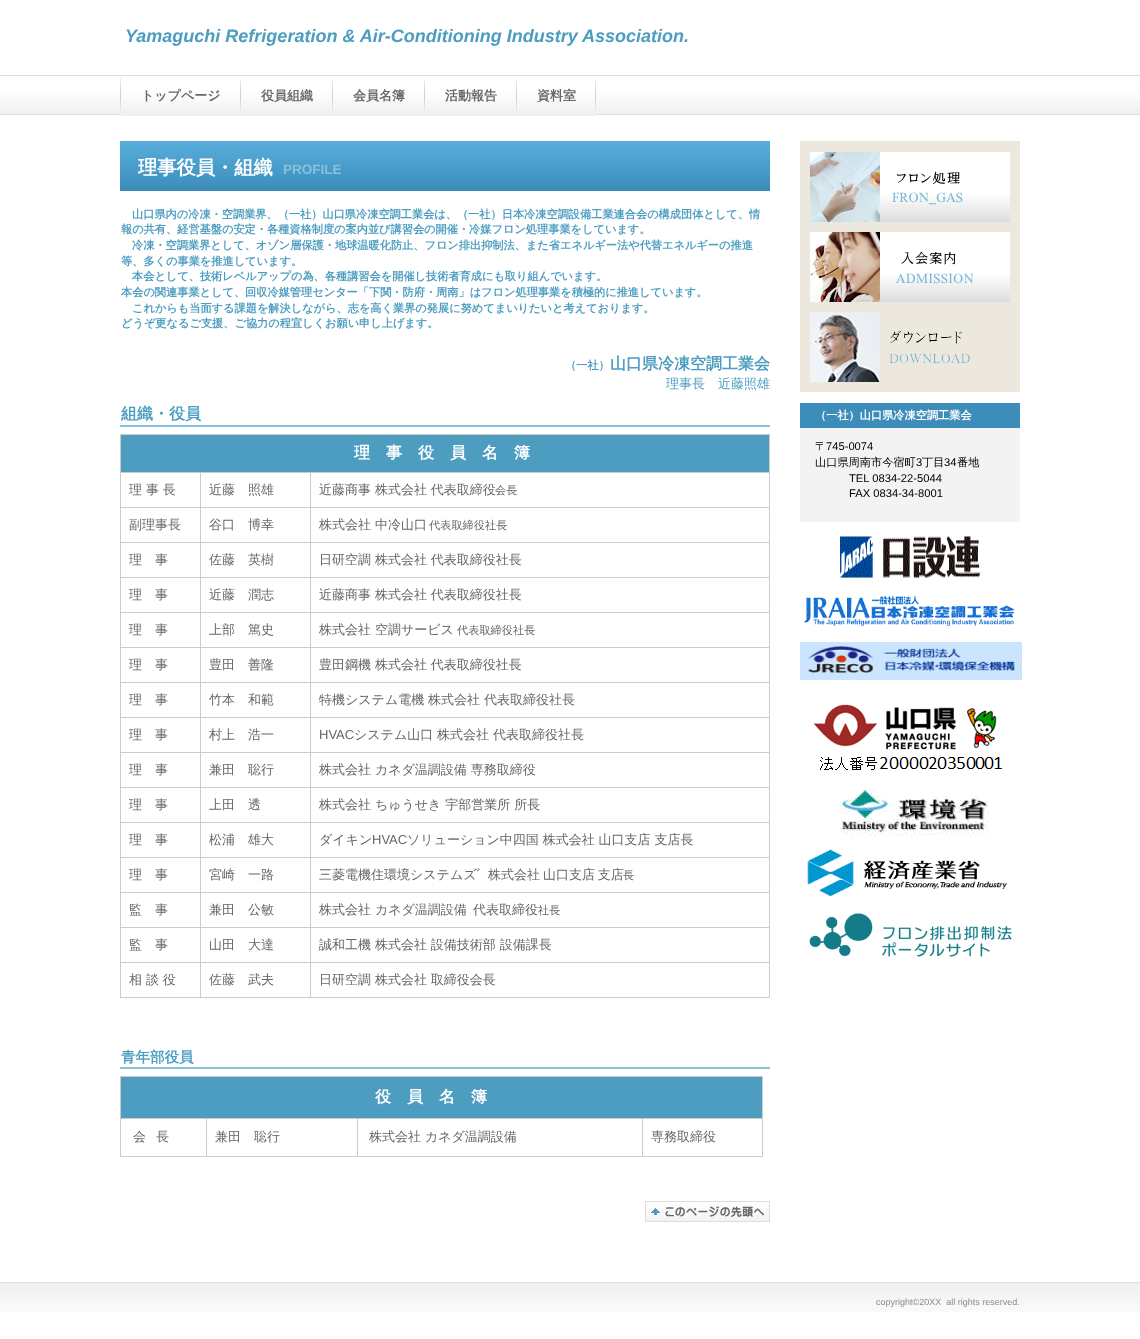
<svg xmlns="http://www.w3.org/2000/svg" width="1140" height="1339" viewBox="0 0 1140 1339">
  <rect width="100%" height="100%" fill="#fff"/>
  <image x="0" y="75" width="1140" height="40" href="img/1.png"/>
  <image x="0" y="1282" width="1140" height="30" href="img/2.png"/>
  <image x="120" y="78" width="1" height="37" href="img/3.png"/>
  <image x="121" y="79" width="120" height="37" href="img/4.png"/>
  <image x="241" y="79" width="92" height="37" href="img/5.png"/>
  <image x="333" y="79" width="92" height="37" href="img/5.png"/>
  <image x="425" y="79" width="92" height="37" href="img/5.png"/>
  <image x="517" y="79" width="79" height="37" href="img/6.png"/>
  <image x="120" y="141" width="650" height="50" href="img/7.png"/>
  <path d="M120 425h650v2H120z" fill="#87c1da"/>
  <path d="M120 434h650v1H120z" fill="#ccc"/>
  <path d="M120 434h1v564H120z" fill="#ccc"/>
  <path d="M121 435h648v37H121z" fill="#4d9dc1"/>
  <path d="M769 434h1v564H769z" fill="#ccc"/>
  <path d="M310 997h460v1H310z" fill="#ccc"/>
  <path d="M310 962h1v36H310z" fill="#ccc"/>
  <path d="M310 962h460v1H310z" fill="#ccc"/>
  <path d="M310 927h1v36H310z" fill="#ccc"/>
  <path d="M310 927h460v1H310z" fill="#ccc"/>
  <path d="M310 892h1v36H310z" fill="#ccc"/>
  <path d="M310 892h460v1H310z" fill="#ccc"/>
  <path d="M310 857h1v36H310z" fill="#ccc"/>
  <path d="M310 857h460v1H310z" fill="#ccc"/>
  <path d="M310 822h1v36H310z" fill="#ccc"/>
  <path d="M310 822h460v1H310z" fill="#ccc"/>
  <path d="M310 787h1v36H310z" fill="#ccc"/>
  <path d="M310 787h460v1H310z" fill="#ccc"/>
  <path d="M310 752h1v36H310z" fill="#ccc"/>
  <path d="M310 752h460v1H310z" fill="#ccc"/>
  <path d="M310 717h1v36H310z" fill="#ccc"/>
  <path d="M310 717h460v1H310z" fill="#ccc"/>
  <path d="M310 682h1v36H310z" fill="#ccc"/>
  <path d="M310 682h460v1H310z" fill="#ccc"/>
  <path d="M310 647h1v36H310z" fill="#ccc"/>
  <path d="M310 647h460v1H310z" fill="#ccc"/>
  <path d="M310 612h1v36H310z" fill="#ccc"/>
  <path d="M310 612h460v1H310z" fill="#ccc"/>
  <path d="M310 577h1v36H310z" fill="#ccc"/>
  <path d="M310 577h460v1H310z" fill="#ccc"/>
  <path d="M310 542h1v36H310z" fill="#ccc"/>
  <path d="M310 542h460v1H310z" fill="#ccc"/>
  <path d="M310 507h1v36H310z" fill="#ccc"/>
  <path d="M310 507h460v1H310z" fill="#ccc"/>
  <path d="M310 472h1v36H310z" fill="#ccc"/>
  <path d="M200 997h111v1H200z" fill="#ccc"/>
  <path d="M200 962h1v36H200z" fill="#ccc"/>
  <path d="M200 962h111v1H200z" fill="#ccc"/>
  <path d="M200 927h1v36H200z" fill="#ccc"/>
  <path d="M200 927h111v1H200z" fill="#ccc"/>
  <path d="M200 892h1v36H200z" fill="#ccc"/>
  <path d="M200 892h111v1H200z" fill="#ccc"/>
  <path d="M200 857h1v36H200z" fill="#ccc"/>
  <path d="M200 857h111v1H200z" fill="#ccc"/>
  <path d="M200 822h1v36H200z" fill="#ccc"/>
  <path d="M200 822h111v1H200z" fill="#ccc"/>
  <path d="M200 787h1v36H200z" fill="#ccc"/>
  <path d="M200 787h111v1H200z" fill="#ccc"/>
  <path d="M200 752h1v36H200z" fill="#ccc"/>
  <path d="M200 752h111v1H200z" fill="#ccc"/>
  <path d="M200 717h1v36H200z" fill="#ccc"/>
  <path d="M200 717h111v1H200z" fill="#ccc"/>
  <path d="M200 682h1v36H200z" fill="#ccc"/>
  <path d="M200 682h111v1H200z" fill="#ccc"/>
  <path d="M200 647h1v36H200z" fill="#ccc"/>
  <path d="M200 647h111v1H200z" fill="#ccc"/>
  <path d="M200 612h1v36H200z" fill="#ccc"/>
  <path d="M200 612h111v1H200z" fill="#ccc"/>
  <path d="M200 577h1v36H200z" fill="#ccc"/>
  <path d="M200 577h111v1H200z" fill="#ccc"/>
  <path d="M200 542h1v36H200z" fill="#ccc"/>
  <path d="M200 542h111v1H200z" fill="#ccc"/>
  <path d="M200 507h1v36H200z" fill="#ccc"/>
  <path d="M200 507h111v1H200z" fill="#ccc"/>
  <path d="M200 472h1v36H200z" fill="#ccc"/>
  <path d="M120 472h650v1H120z" fill="#ccc"/>
  <path d="M120 507h81v1H120z" fill="#ccc"/>
  <path d="M120 542h81v1H120z" fill="#ccc"/>
  <path d="M120 577h81v1H120z" fill="#ccc"/>
  <path d="M120 612h81v1H120z" fill="#ccc"/>
  <path d="M120 647h81v1H120z" fill="#ccc"/>
  <path d="M120 682h81v1H120z" fill="#ccc"/>
  <path d="M120 717h81v1H120z" fill="#ccc"/>
  <path d="M120 752h81v1H120z" fill="#ccc"/>
  <path d="M120 787h81v1H120z" fill="#ccc"/>
  <path d="M120 822h81v1H120z" fill="#ccc"/>
  <path d="M120 857h81v1H120z" fill="#ccc"/>
  <path d="M120 892h81v1H120z" fill="#ccc"/>
  <path d="M120 927h81v1H120z" fill="#ccc"/>
  <path d="M120 962h81v1H120z" fill="#ccc"/>
  <path d="M120 997h81v1H120z" fill="#ccc"/>
  <path d="M120 1067h650v2H120z" fill="#87c1da"/>
  <path d="M120 1076h643v1H120z" fill="#ccc"/>
  <path d="M120 1076h1v81H120z" fill="#ccc"/>
  <path d="M121 1077h641v41H121z" fill="#4d9dc1"/>
  <path d="M762 1076h1v81H762z" fill="#ccc"/>
  <path d="M642 1156h121v1H642z" fill="#ccc"/>
  <path d="M642 1118h1v39H642z" fill="#ccc"/>
  <path d="M357 1156h286v1H357z" fill="#ccc"/>
  <path d="M357 1118h1v39H357z" fill="#ccc"/>
  <path d="M206 1156h152v1H206z" fill="#ccc"/>
  <path d="M206 1118h1v39H206z" fill="#ccc"/>
  <path d="M120 1118h643v1H120z" fill="#ccc"/>
  <path d="M120 1156h87v1H120z" fill="#ccc"/>
  <image x="645" y="1201" width="125" height="21" href="img/8.png"/>
  <path d="M800 141h220v251H800z" fill="#ece8dd"/>
  <image x="810" y="152" width="200" height="70" href="img/9.png"/>
  <image x="810" y="232" width="200" height="70" href="img/10.png"/>
  <image x="810" y="312" width="160" height="70" href="img/11.png"/>
  <path d="M800 428h220v94H800z" fill="#f3f3f3"/>
  <path d="M800 403h220v25H800z" fill="#3d8dbb"/>
  <image x="840" y="536" width="140" height="42" href="img/12.png"/>
  <image x="804" y="596" width="211" height="30" href="img/13.png"/>
  <image x="800" y="642" width="222" height="38" href="img/14.png"/>
  <image x="814" y="704" width="189" height="66" href="img/15.png"/>
  <image x="840" y="789" width="150" height="47" href="img/16.png"/>
  <image x="807" y="849" width="201" height="48" href="img/17.png"/>
  <image x="809" y="913" width="203" height="44" href="img/18.png"/>
  <text x="125" y="42" font-family="Liberation Sans" font-size="18" font-weight="bold" font-style="italic" fill="#4d9dc1">Yamaguchi Refrigeration &amp; Air-Conditioning Industry Association.</text>
  <g font-family="WenQuanYi Zen Hei" font-size="13" font-weight="bold" fill="#666">
    <text x="141" y="100">トップページ</text>
    <text x="261" y="100">役員組織</text>
    <text x="353" y="100">会員名簿</text>
    <text x="445" y="100">活動報告</text>
    <text x="537" y="100">資料室</text>
  </g>
  <text x="138" y="174" font-family="WenQuanYi Zen Hei" font-size="19.25" font-weight="bold" fill="#fff">理事役員・組織</text>
  <text x="283" y="174" font-family="Liberation Sans" font-size="13.5" font-weight="bold" fill="#87c1da">PROFILE</text>
  <g font-family="WenQuanYi Zen Hei" font-size="11.2" font-weight="bold" fill="#4d9dc1">
    <text x="132" y="218">山口県内の冷凍・空調業界、（一社）山口県冷凍空調工業会は、（一社）日本冷凍空調設備工業連合会の構成団体として、情</text>
    <text x="121" y="233">報の共有、経営基盤の安定・各種資格制度の案内並び講習会の開催・冷媒フロン処理事業をしています。</text>
    <text x="132" y="249">冷凍・空調業界として、オゾン層保護・地球温暖化防止、フロン排出抑制法、また省エネルギー法や代替エネルギーの推進</text>
    <text x="121" y="265">等、多くの事業を推進しています。</text>
    <text x="132" y="280">本会として、技術レベルアップの為、各種講習会を開催し技術者育成にも取り組んでいます。</text>
    <text x="121" y="296">本会の関連事業として、回収冷媒管理センター「下関・防府・周南」はフロン処理事業を積極的に推進しています。</text>
    <text x="132" y="312">これからも当面する課題を解決しながら、志を高く業界の発展に努めてまいりたいと考えております。</text>
    <text x="121" y="327">どうぞ更なるご支援、ご協力の程宜しくお願い申し上げます。</text>
    <text x="565" y="369">（一社）</text>
  </g>
  <text x="610" y="369" font-family="WenQuanYi Zen Hei" font-size="16" font-weight="bold" fill="#4d9dc1">山口県冷凍空調工業会</text>
  <text x="666" y="388" font-family="WenQuanYi Zen Hei" font-size="13" font-weight="500" fill="#4d9dc1">理事長　近藤照雄</text>
  <text x="121" y="419" font-family="WenQuanYi Zen Hei" font-size="16" font-weight="bold" fill="#4d9dc1">組織・役員</text>
  <text x="354" y="458" font-family="WenQuanYi Zen Hei" font-size="16" font-weight="bold" fill="#fff">理　事　役　員　名　簿</text>
  <g font-family="WenQuanYi Zen Hei" font-size="13" font-weight="500" fill="#666">
    <text x="129" y="494">理 事 長</text>
    <text x="209" y="494">近藤　照雄</text>
    <text x="319" y="494">近藤商事 株式会社 代表取締役</text>
  </g>
  <text x="495" y="494" font-family="WenQuanYi Zen Hei" font-size="11.2" font-weight="500" fill="#666">会長</text>
  <g font-family="WenQuanYi Zen Hei" font-size="13" font-weight="500" fill="#666">
    <text x="129" y="529">副理事長</text>
    <text x="209" y="529">谷口　博幸</text>
    <text x="319" y="529">株式会社 中冷山口</text>
  </g>
  <text x="429" y="529" font-family="WenQuanYi Zen Hei" font-size="11.2" font-weight="500" fill="#666">代表取締役社長</text>
  <g font-family="WenQuanYi Zen Hei" font-size="13" font-weight="500" fill="#666">
    <text x="129" y="564">理　事</text>
    <text x="209" y="564">佐藤　英樹</text>
    <text x="319" y="564">日研空調 株式会社 代表取締役社長</text>
    <text x="129" y="599">理　事</text>
    <text x="209" y="599">近藤　潤志</text>
    <text x="319" y="599">近藤商事 株式会社 代表取締役社長</text>
    <text x="129" y="634">理　事</text>
    <text x="209" y="634">上部　篤史</text>
    <text x="319" y="634">株式会社 空調サービス</text>
  </g>
  <text x="457" y="634" font-family="WenQuanYi Zen Hei" font-size="11.2" font-weight="500" fill="#666">代表取締役社長</text>
  <g font-family="WenQuanYi Zen Hei" font-size="13" font-weight="500" fill="#666">
    <text x="129" y="669">理　事</text>
    <text x="209" y="669">豊田　善隆</text>
    <text x="319" y="669">豊田鋼機 株式会社 代表取締役社長</text>
    <text x="129" y="704">理　事</text>
    <text x="209" y="704">竹本　和範</text>
    <text x="319" y="704">特機システム電機 株式会社 代表取締役社長</text>
    <text x="129" y="739">理　事</text>
    <text x="209" y="739">村上　浩一</text>
  </g>
  <text x="319" y="739" font-family="Liberation Sans" font-size="13" fill="#666">HVAC</text>
  <g font-family="WenQuanYi Zen Hei" font-size="13" font-weight="500" fill="#666">
    <text x="354" y="739">システム山口 株式会社 代表取締役社長</text>
    <text x="129" y="774">理　事</text>
    <text x="209" y="774">兼田　聡行</text>
    <text x="319" y="774">株式会社 カネダ温調設備 専務取締役</text>
    <text x="129" y="809">理　事</text>
    <text x="209" y="809">上田　透</text>
    <text x="319" y="809">株式会社 ちゅうせき 宇部営業所 所長</text>
    <text x="129" y="844">理　事</text>
    <text x="209" y="844">松浦　雄大</text>
    <text x="319" y="844">ダイキン</text>
  </g>
  <text x="372" y="844" font-family="Liberation Sans" font-size="13" fill="#666">HVAC</text>
  <g font-family="WenQuanYi Zen Hei" font-size="13" font-weight="500" fill="#666">
    <text x="407" y="844">ソリューション中四国 株式会社 山口支店 支店長</text>
    <text x="129" y="879">理　事</text>
    <text x="209" y="879">宮崎　一路</text>
    <text x="319" y="879">三菱電機住環境システムズ</text>
  </g>
  <text x="476" y="879" font-family="Liberation Sans" font-size="13" fill="#666">ﾞ</text>
  <text x="488" y="879" word-spacing="-1" font-family="WenQuanYi Zen Hei" font-size="13" font-weight="500" fill="#666">株式会社 山口支店 支店</text>
  <text x="623" y="879" font-family="WenQuanYi Zen Hei" font-size="11.2" font-weight="500" fill="#666">長</text>
  <g font-family="WenQuanYi Zen Hei" font-size="13" font-weight="500" fill="#666">
    <text x="129" y="914">監　事</text>
    <text x="209" y="914">兼田　公敏</text>
    <text x="319" y="914">株式会社 カネダ温調設備</text>
    <text x="473" y="914">代表取締役</text>
  </g>
  <text x="538" y="914" font-family="WenQuanYi Zen Hei" font-size="11.2" font-weight="500" fill="#666">社長</text>
  <g font-family="WenQuanYi Zen Hei" font-size="13" font-weight="500" fill="#666">
    <text x="129" y="949">監　事</text>
    <text x="209" y="949">山田　大達</text>
    <text x="319" y="949">誠和工機 株式会社 設備技術部 設備課長</text>
    <text x="129" y="984">相 談 役</text>
    <text x="209" y="984">佐藤　武夫</text>
    <text x="319" y="984">日研空調 株式会社 取締役会長</text>
  </g>
  <text x="121" y="1062" font-family="WenQuanYi Zen Hei" font-size="14.5" font-weight="bold" fill="#4d9dc1">青年部役員</text>
  <text x="375" y="1102" font-family="WenQuanYi Zen Hei" font-size="16" font-weight="bold" fill="#fff">役　員　名　簿</text>
  <g font-family="WenQuanYi Zen Hei" font-size="13" font-weight="500" fill="#666">
    <text x="133" y="1141">会</text>
    <text x="156" y="1141">長</text>
    <text x="215" y="1141">兼田　聡行</text>
    <text x="369" y="1141">株式会社 カネダ温調設備</text>
    <text x="651" y="1141">専務取締役</text>
  </g>
  <text x="815" y="419" font-family="WenQuanYi Zen Hei" font-size="11.2" font-weight="bold" fill="#fff">（一社）山口県冷凍空調工業会</text>
  <text x="815" y="450" font-family="WenQuanYi Zen Hei" font-size="11.2" font-weight="500" fill="#000">〒</text>
  <text x="826" y="450" font-family="Liberation Sans" font-size="11.2" fill="#000">745-0074</text>
  <text x="815" y="466" font-family="WenQuanYi Zen Hei" font-size="11.2" font-weight="500" fill="#000">山口県周南市今宿町</text>
  <text x="916" y="466" font-family="Liberation Sans" font-size="11.2" fill="#000">3</text>
  <text x="922" y="466" font-family="WenQuanYi Zen Hei" font-size="11.2" font-weight="500" fill="#000">丁目</text>
  <text x="944" y="466" font-family="Liberation Sans" font-size="11.2" fill="#000">34</text>
  <text x="957" y="466" font-family="WenQuanYi Zen Hei" font-size="11.2" font-weight="500" fill="#000">番地</text>
  <g font-family="Liberation Sans" font-size="11.2" fill="#000">
    <text x="849" y="482">TEL 0834-22-5044</text>
    <text x="849" y="497">FAX 0834-34-8001</text>
  </g>
  <text x="876" y="1305" font-family="Liberation Sans" font-size="9" fill="#8a8a8a" xml:space="preserve">copyright©20XX  all rights reserved.</text>
</svg>
